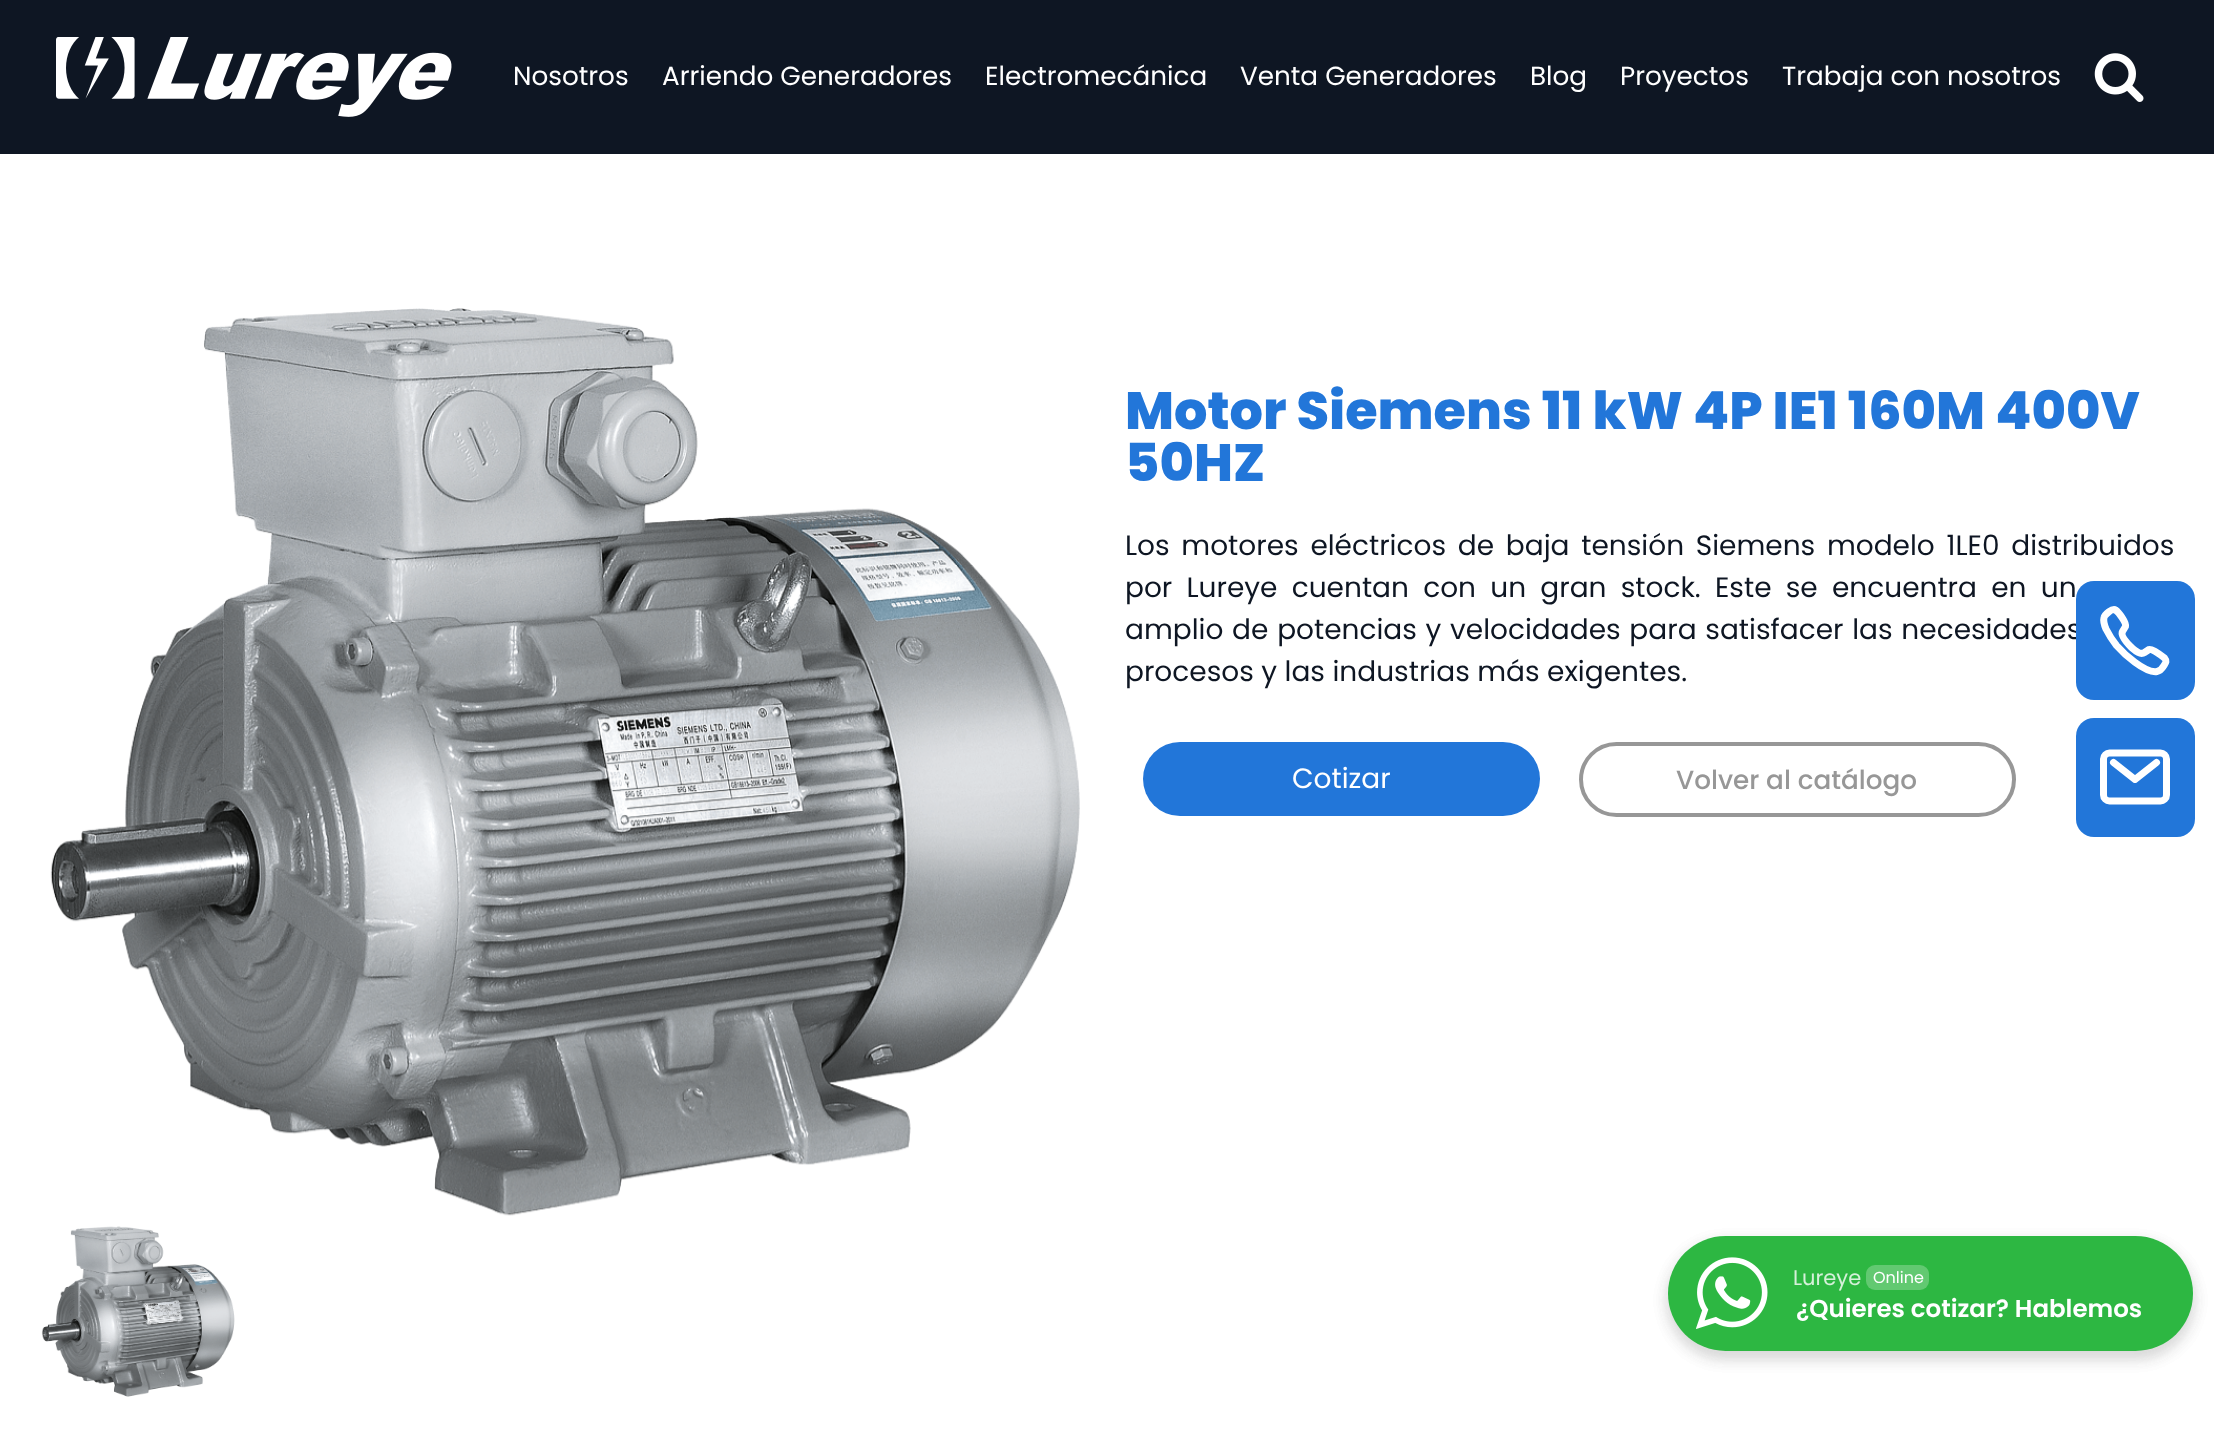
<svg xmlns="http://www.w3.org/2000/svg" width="2214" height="1454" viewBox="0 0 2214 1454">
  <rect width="100%" height="100%" fill="#fff"/>
  <path d="M0 0h2214v154H0z" fill="#0e1623"/>
  <image x="56" y="37" width="396" height="80" href="img/1.png"/>
  <image x="2094" y="53" width="50" height="49" href="img/2.png"/>
  <rect x="2076" y="718" width="119" height="119" rx="18" fill="#2276d9"/>
  <path d="M2160.5 753H2109.5C2106.5 753 2103.5 755.5 2103.5 759V795C2103.5 798.5 2106.5 801 2109.5 801H2160.5C2163.5 801 2166.5 798.5 2166.5 795V759C2166.5 755.5 2163.5 753 2160.5 753Z" fill="none" stroke="#fff" stroke-width="7" stroke-linecap="round" stroke-linejoin="round"/>
  <path d="M2113.5 762.5L2135 779.5L2156.5 762.5" fill="none" stroke="#fff" stroke-width="7" stroke-linecap="round" stroke-linejoin="round"/>
  <rect x="1666" y="1241" width="529" height="119" rx="59.5" fill="#20202517" filter="blur(7px)"/>
  <image x="50" y="308" width="1030" height="908" href="img/3.png"/>
  <image x="41" y="1226" width="194" height="171" href="img/4.png"/>
  <rect x="1143" y="742" width="397" height="74" rx="37" fill="#2276d9"/>
  <rect x="1581" y="744" width="433" height="71" rx="35.5" fill="none" stroke="#979797" stroke-width="4"/>
  <rect x="1666" y="1241" width="529" height="119" rx="59.5" fill="#20202517" filter="blur(7px)"/>
  <rect x="1668" y="1236" width="525" height="115" rx="57.5" fill="#2db742"/>
  <image x="1696" y="1257" width="72" height="72" href="img/5.png"/>
  <rect x="1866" y="1265" width="63" height="25" rx="9" fill="#62c971"/>
  <g font-family="Poppins" font-size="26.25" fill="#fff">
    <text x="513" y="85">Nosotros</text>
    <text x="662" y="85">Arriendo Generadores</text>
    <text x="985" y="85">Electromecánica</text>
    <text x="1240" y="85">Venta Generadores</text>
    <text x="1530" y="85">Blog</text>
    <text x="1620" y="85">Proyectos</text>
    <text x="1782" y="85">Trabaja con nosotros</text>
  </g>
  <g font-family="Poppins" font-size="52.5" font-weight="800" fill="#2276d9">
    <text x="1125" y="429">Motor Siemens 11 kW 4P IE1 160M 400V</text>
    <text x="1125" y="481">50HZ</text>
  </g>
  <g font-family="Poppins" font-size="28" fill="#0e1623">
    <text x="1125" y="555" word-spacing="4.25">Los motores eléctricos de baja tensión Siemens modelo 1LE0 distribuidos</text>
    <text x="1125" y="597" word-spacing="6.75">por Lureye cuentan con un gran stock. Este se encuentra en un</text>
    <text x="1125" y="639" word-spacing="1.25">amplio de potencias y velocidades para satisfacer las necesidades</text>
  </g>
  <rect x="2076" y="581" width="119" height="119" rx="18" fill="#2276d9"/>
  <path d="M2164.5 658C2162 656 2152 648.5 2149 649.5L2144.5 652.5C2140 655.5 2134.5 650 2131.5 647.5C2128.5 644.5 2120 636 2122.5 631.5L2125.5 626.5C2126.5 622.5 2118.5 612 2115.5 610C2112.5 607.5 2104.5 615 2104 617.5C2103 621.5 2104.5 625.5 2106 629C2109 635 2112.5 640.5 2116.5 645.5C2123.5 653.5 2145 673.5 2157 671.5C2160 671 2162.5 668 2164 665.5C2166 662.5 2167 661 2164.5 658Z" fill="none" stroke="#fff" stroke-width="7"/>
  <text x="1125" y="681" font-family="Poppins" font-size="28" fill="#0e1623">procesos y las industrias más exigentes.</text>
  <text x="1292" y="788" font-family="Poppins" font-size="28" fill="#fff">Cotizar</text>
  <text x="1676" y="789" font-family="Poppins" font-size="26.25" font-weight="500" fill="#979797">Volver al catálogo</text>
  <text x="1793" y="1285" font-family="Poppins" font-size="21" fill="#d5f0d9">Lureye</text>
  <text x="1873" y="1283" font-family="Poppins" font-size="16" fill="#fff">Online</text>
  <text x="1796" y="1317" font-family="Poppins" font-size="24.5" font-weight="600" fill="#fff">¿Quieres cotizar? Hablemos</text>
</svg>
